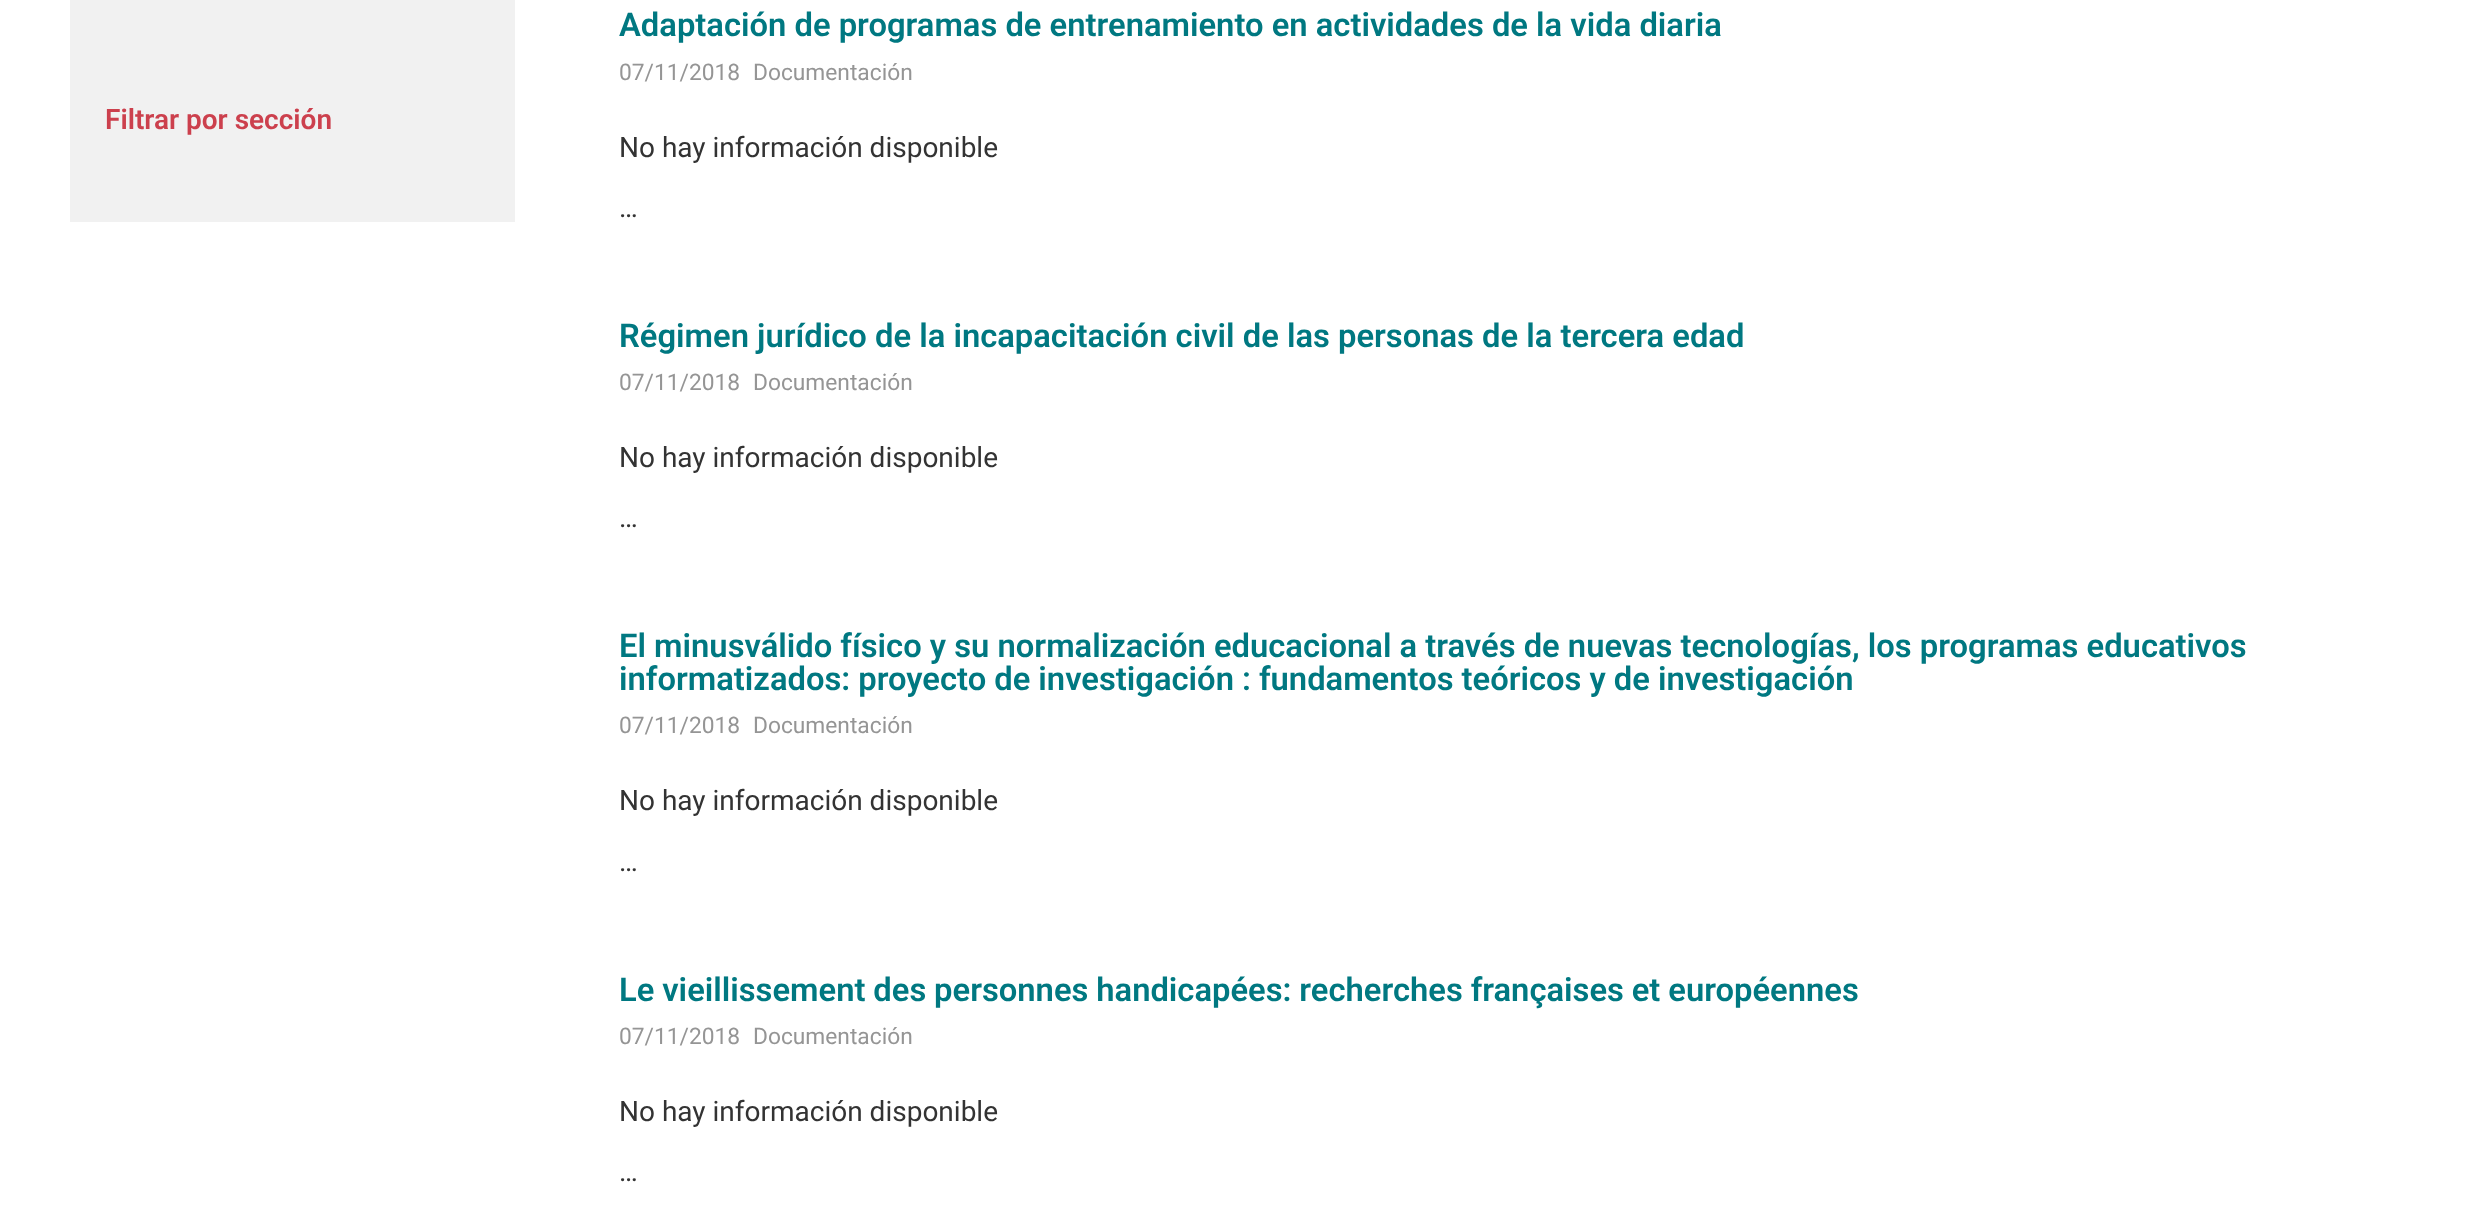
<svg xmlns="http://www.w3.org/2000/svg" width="2468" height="1206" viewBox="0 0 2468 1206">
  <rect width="100%" height="100%" fill="#fff"/>
  <path d="M70 0h445v222H70z" fill="#f1f1f1"/>
  <text x="105" y="129" font-family="Roboto" font-size="28" font-weight="600" fill="#cc404d">Filtrar por sección</text>
  <text x="619" y="36" font-family="Roboto" font-size="32.75" font-weight="600" fill="#007881">Adaptación de programas de entrenamiento en actividades de la vida diaria</text>
  <g font-family="Roboto" font-size="22.75" fill="#959595">
    <text x="619" y="80">07/11/2018</text>
    <text x="753" y="80">Documentación</text>
  </g>
  <g font-family="Roboto" font-size="28" fill="#333">
    <text x="619" y="157">No hay información disponible</text>
    <text x="619" y="217">…</text>
  </g>
  <text x="619" y="347" font-family="Roboto" font-size="32.75" font-weight="600" fill="#007881">Régimen jurídico de la incapacitación civil de las personas de la tercera edad</text>
  <g font-family="Roboto" font-size="22.75" fill="#959595">
    <text x="619" y="390">07/11/2018</text>
    <text x="753" y="390">Documentación</text>
  </g>
  <g font-family="Roboto" font-size="28" fill="#333">
    <text x="619" y="467">No hay información disponible</text>
    <text x="619" y="527">…</text>
  </g>
  <g font-family="Roboto" font-size="32.75" font-weight="600" fill="#007881">
    <text x="619" y="657">El minusválido físico y su normalización educacional a través de nuevas tecnologías, los programas educativos</text>
    <text x="619" y="690" word-spacing="-0.1">informatizados: proyecto de investigación : fundamentos teóricos y de investigación</text>
  </g>
  <g font-family="Roboto" font-size="22.75" fill="#959595">
    <text x="619" y="733">07/11/2018</text>
    <text x="753" y="733">Documentación</text>
  </g>
  <g font-family="Roboto" font-size="28" fill="#333">
    <text x="619" y="810">No hay información disponible</text>
    <text x="619" y="871">…</text>
  </g>
  <text x="619" y="1001" word-spacing="-0.25" font-family="Roboto" font-size="32.75" font-weight="600" fill="#007881">Le vieillissement des personnes handicapées: recherches françaises et européennes</text>
  <g font-family="Roboto" font-size="22.75" fill="#959595">
    <text x="619" y="1044">07/11/2018</text>
    <text x="753" y="1044">Documentación</text>
  </g>
  <g font-family="Roboto" font-size="28" fill="#333">
    <text x="619" y="1121">No hay información disponible</text>
    <text x="619" y="1181">…</text>
  </g>
</svg>
